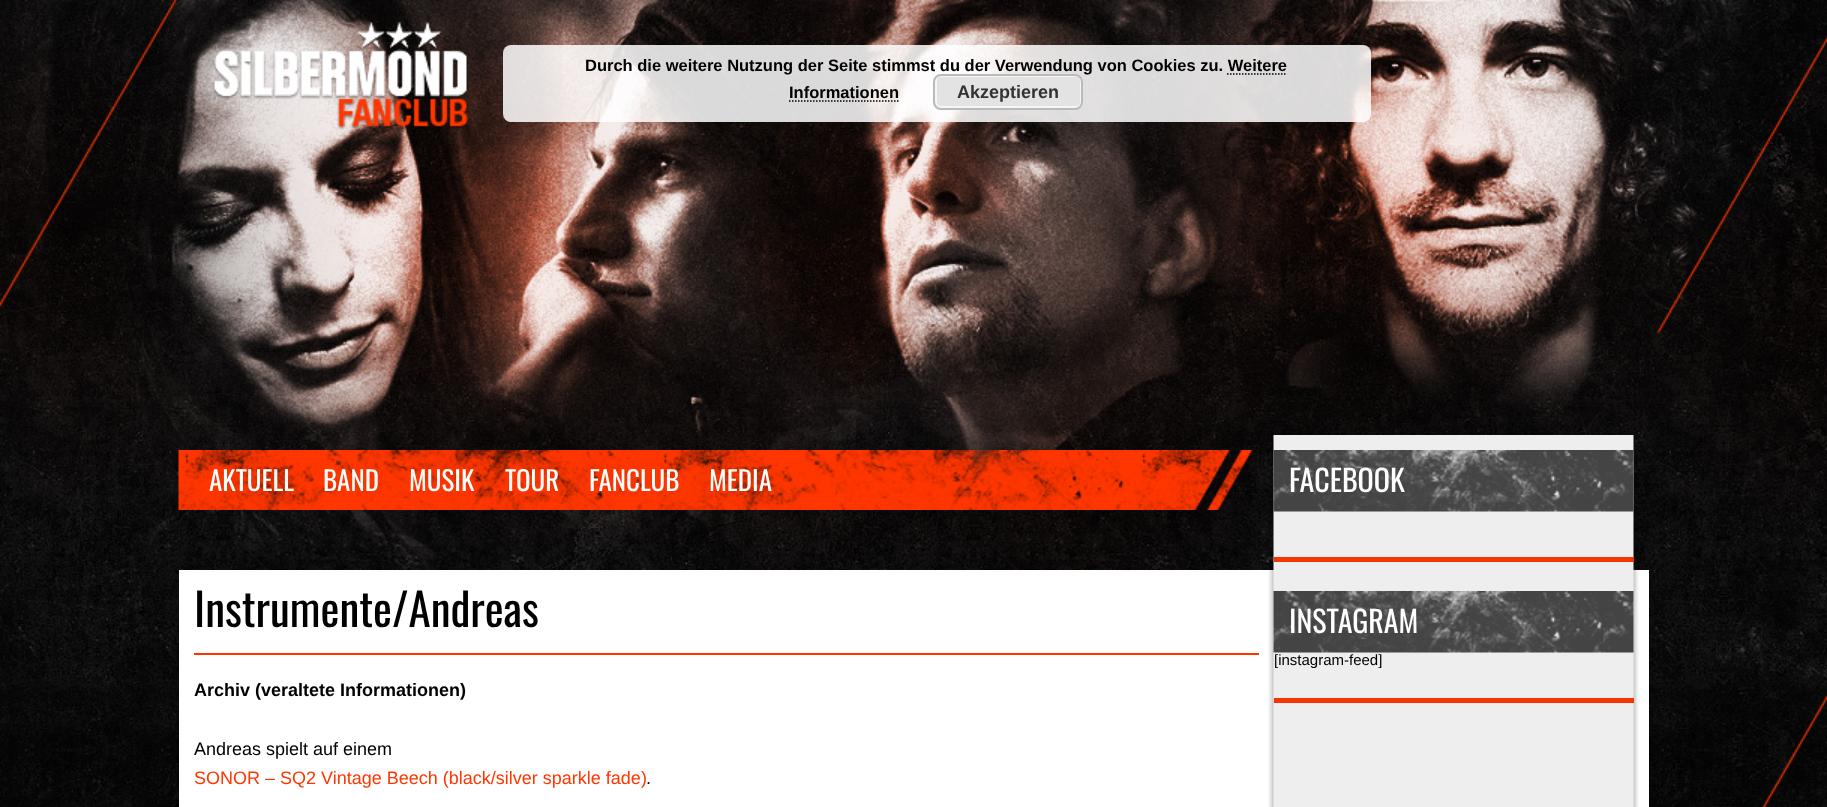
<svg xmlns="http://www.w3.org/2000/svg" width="1827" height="807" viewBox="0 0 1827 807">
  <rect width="100%" height="100%" fill="#fff"/>
  <image x="0" y="0" width="1827" height="807" href="img/1.png"/>
  <rect x="503" y="45" width="868" height="77" rx="8" fill="#ffffffd9"/>
  <path d="M1227 74H1287" fill="none" stroke="#000" stroke-width="1.5" stroke-dasharray="1.5 1.5"/>
  <path d="M789 101H898.5" fill="none" stroke="#000" stroke-width="1.5" stroke-dasharray="1.5 1.5"/>
  <image x="213" y="22" width="256" height="108" href="img/2.png"/>
  <path d="M179 570h1470v237H179z" fill="#fff"/>
  <image x="1268" y="435" width="371" height="372" href="img/3.png"/>
  <path d="M1274 557h360v5H1274z" fill="#f43401"/>
  <image x="1273" y="450" width="361" height="62" href="img/4.png"/>
  <path d="M1274 698h360v5H1274z" fill="#f43401"/>
  <image x="1273" y="591" width="361" height="62" href="img/5.png"/>
  <path d="M194 653h1065v2H194z" fill="#ff3600"/>
  <image x="178" y="450" width="1075" height="60" href="img/6.png"/>
  <g font-family="Liberation Sans" font-size="16.5" font-weight="bold" fill="#000">
    <text x="585" y="71">Durch die weitere Nutzung der Seite stimmst du der Verwendung von Cookies zu. Weitere</text>
    <text x="789" y="98">Informationen</text>
  </g>
  <rect x="933" y="74" width="150" height="36" rx="8" fill="#e3e3e3"/>
  <rect x="936" y="76" width="145" height="31" rx="5" fill="none" stroke="#f6f6f6" stroke-width="2"/>
  <rect x="934" y="75" width="148" height="34" rx="7" fill="none" stroke="#bbb" stroke-width="2"/>
  <text x="957" y="98" font-family="Liberation Sans" font-size="18" font-weight="bold" fill="#333">Akzeptieren</text>
  <g font-family="Oswald" font-size="30" fill="#fff">
    <text x="1289" y="492">FACEBOOK</text>
    <text x="1289" y="633">INSTAGRAM</text>
  </g>
  <text x="1274" y="665" font-family="Arimo" font-size="15" fill="#000">[instagram-feed]</text>
  <text x="194" y="627" font-family="Oswald" font-size="45" fill="#000">Instrumente/Andreas</text>
  <text x="194" y="696" font-family="Arimo" font-size="18" font-weight="bold" fill="#000">Archiv (veraltete Informationen)</text>
  <text x="194" y="755" font-family="Arimo" font-size="18" fill="#000">Andreas spielt auf einem</text>
  <text x="194" y="784" font-family="Arimo" font-size="18" fill="#ff3600">SONOR – SQ2 Vintage Beech (black/silver sparkle fade)</text>
  <text x="646" y="784" font-family="Arimo" font-size="18" fill="#000">.</text>
  <g font-family="Oswald" font-size="27" fill="#fff">
    <text x="209" y="491">AKTUELL</text>
    <text x="323" y="491">BAND</text>
    <text x="409" y="491">MUSIK</text>
    <text x="505" y="491">TOUR</text>
    <text x="589" y="491">FANCLUB</text>
    <text x="709" y="491">MEDIA</text>
  </g>
</svg>
